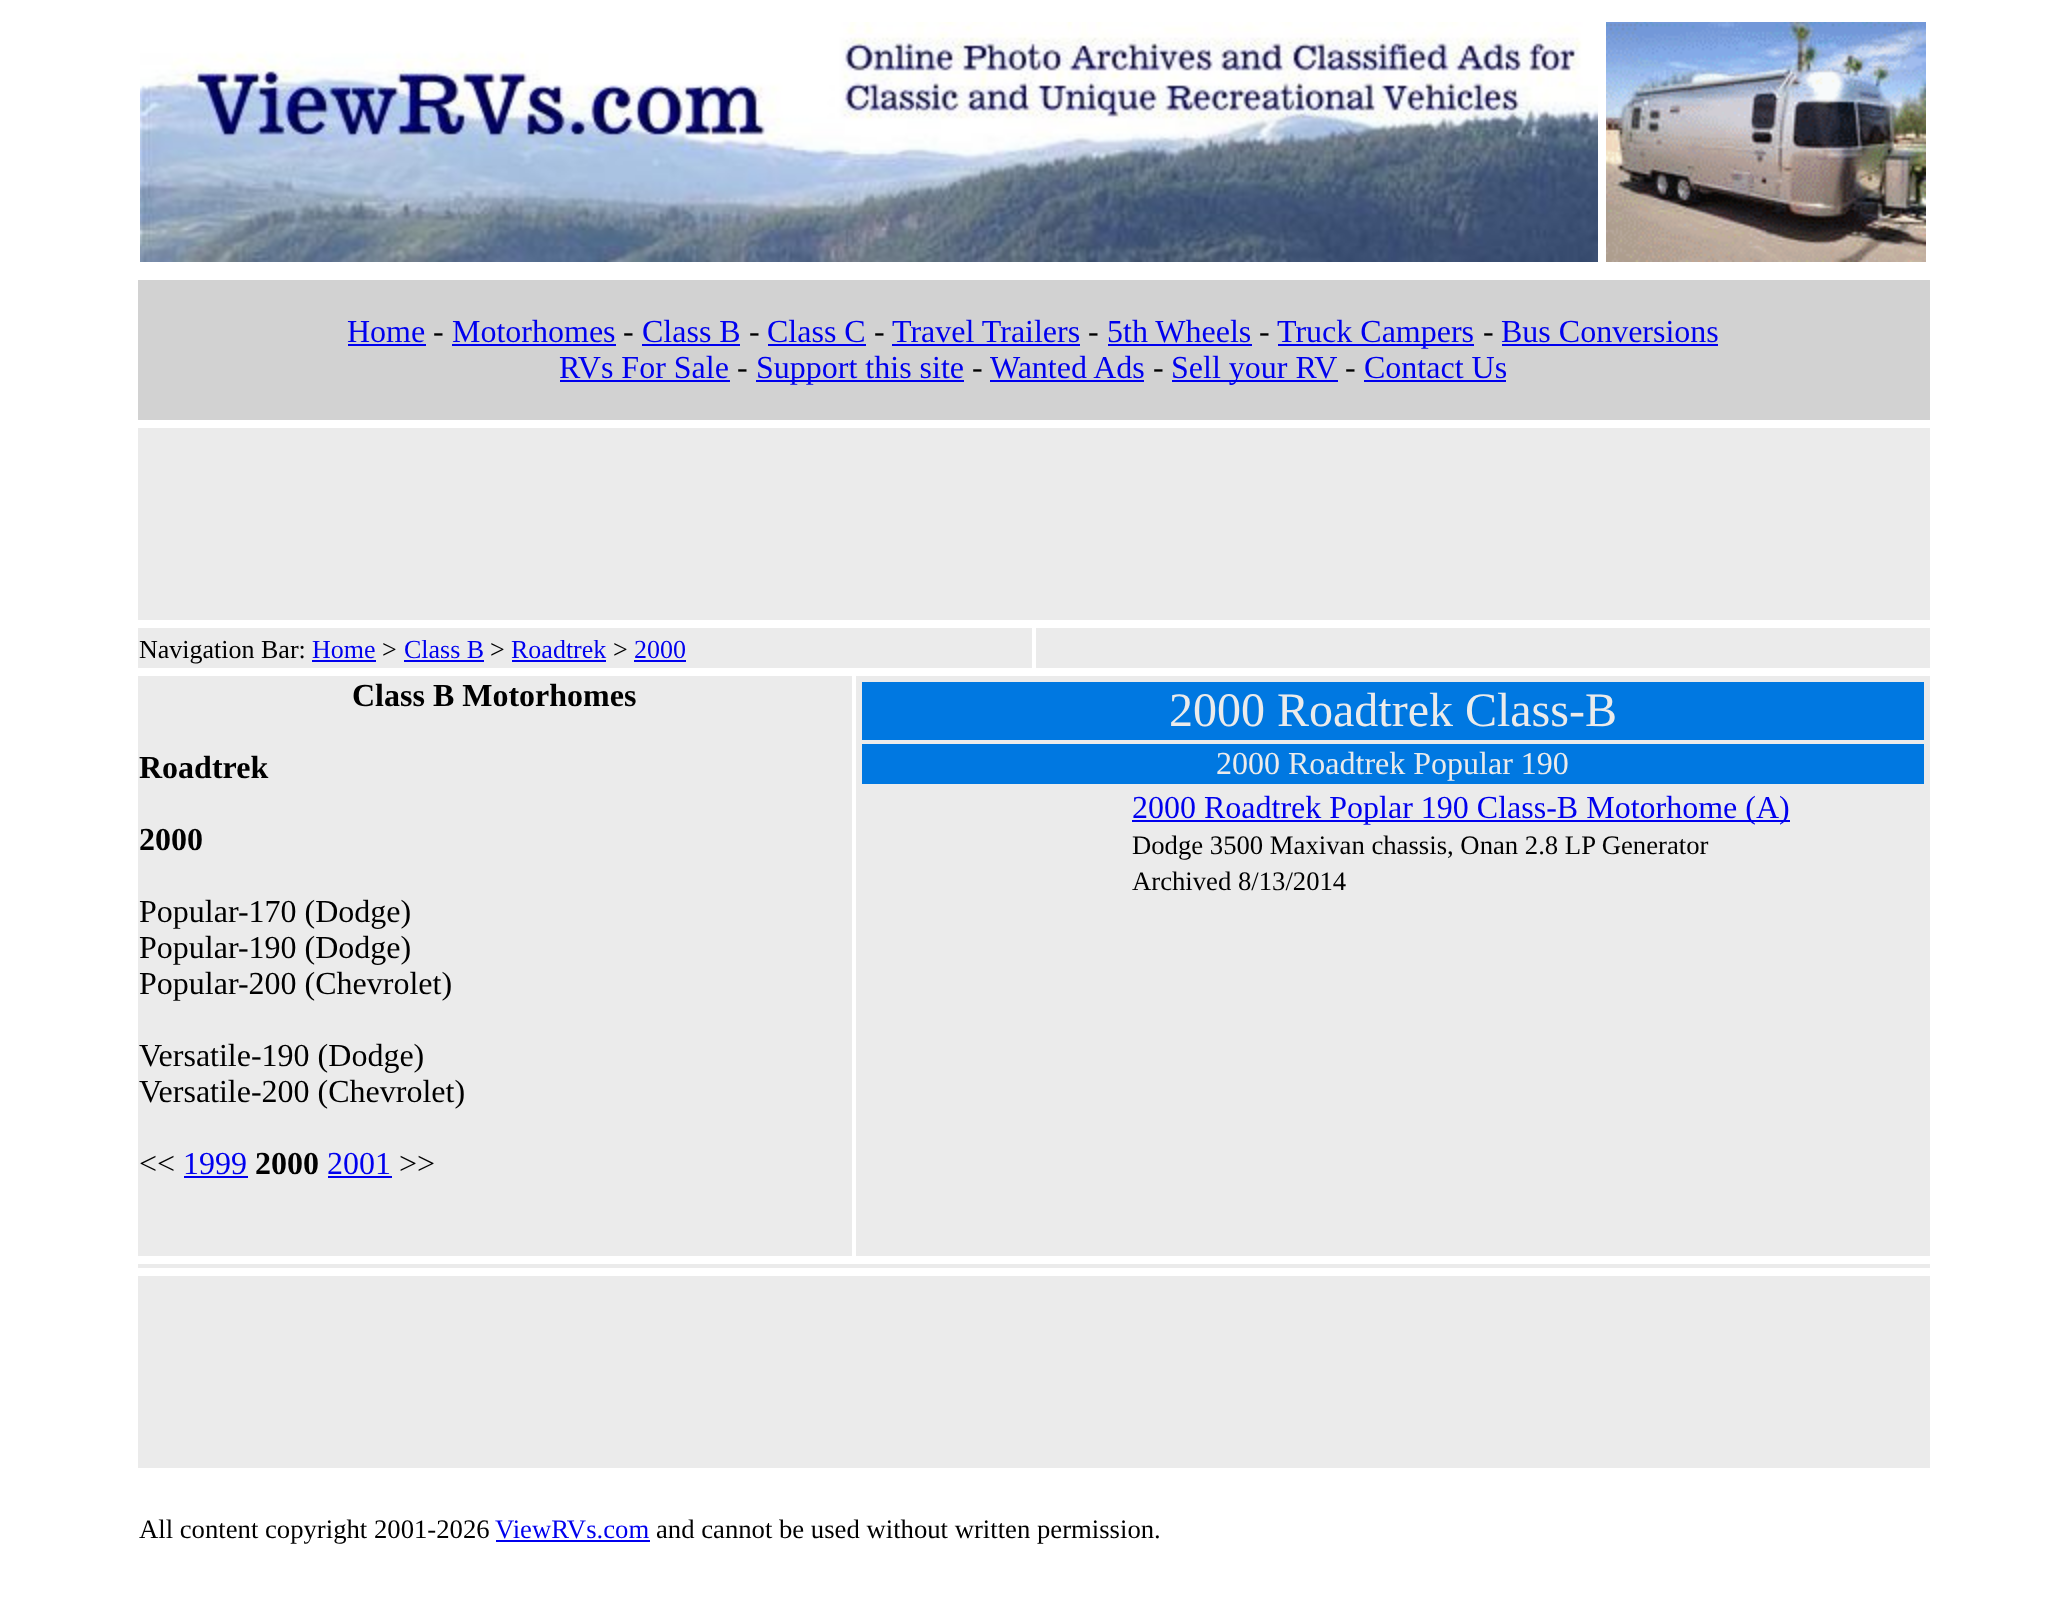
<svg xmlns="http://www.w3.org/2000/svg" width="2065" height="1610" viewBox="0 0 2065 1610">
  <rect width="100%" height="100%" fill="#fff"/>
  <image x="140" y="22" width="1458" height="240" href="img/1.png"/>
  <image x="1606" y="22" width="320" height="240" href="img/2.png"/>
  <path d="M138 280h1792v140H138z" fill="#d2d2d2"/>
  <path d="M348 344h78v2H348z" fill="#00e"/>
  <path d="M452 344h164v2H452z" fill="#00e"/>
  <path d="M642 344h98v2H642z" fill="#00e"/>
  <path d="M768 344h98v2H768z" fill="#00e"/>
  <path d="M892 344h188v2H892z" fill="#00e"/>
  <path d="M1108 344h144v2H1108z" fill="#00e"/>
  <path d="M1278 344h196v2H1278z" fill="#00e"/>
  <path d="M1502 344h216v2H1502z" fill="#00e"/>
  <path d="M560 380h170v2H560z" fill="#00e"/>
  <path d="M756 380h208v2H756z" fill="#00e"/>
  <path d="M990 380h154v2H990z" fill="#00e"/>
  <path d="M1172 380h166v2H1172z" fill="#00e"/>
  <path d="M1364 380h142v2H1364z" fill="#00e"/>
  <path d="M138 428h1792v192H138z" fill="#ebebeb"/>
  <path d="M138 628h894v40H138z" fill="#ebebeb"/>
  <path d="M312 660h64v2H312z" fill="#00e"/>
  <path d="M404 660h80v2H404z" fill="#00e"/>
  <path d="M512 660h94v2H512z" fill="#00e"/>
  <path d="M634 660h52v2H634z" fill="#00e"/>
  <path d="M1036 628h894v40H1036z" fill="#ebebeb"/>
  <path d="M138 676h714v580H138z" fill="#ebebeb"/>
  <path d="M184 1176h64v2H184z" fill="#00e"/>
  <path d="M328 1176h64v2H328z" fill="#00e"/>
  <path d="M856 676h1074v580H856z" fill="#ebebeb"/>
  <path d="M862 682h1062v58H862z" fill="#0078e1"/>
  <path d="M862 744h1062v40H862z" fill="#0078e1"/>
  <path d="M1132 820h658v2H1132z" fill="#00e"/>
  <path d="M138 1264h1792v4H138z" fill="#ebebeb"/>
  <path d="M138 1276h1792v192H138z" fill="#ebebeb"/>
  <path d="M496 1540h154v2H496z" fill="#00e"/>
  <text x="347" y="342" font-family="Liberation Serif" font-size="32" fill="#00e">Home</text>
  <text x="433" y="342" font-family="Liberation Serif" font-size="32" fill="#000">-</text>
  <text x="452" y="342" font-family="Liberation Serif" font-size="32" fill="#00e">Motorhomes</text>
  <text x="623" y="342" font-family="Liberation Serif" font-size="32" fill="#000">-</text>
  <text x="642" y="342" font-family="Liberation Serif" font-size="32" fill="#00e">Class B</text>
  <text x="749" y="342" font-family="Liberation Serif" font-size="32" fill="#000">-</text>
  <text x="767" y="342" font-family="Liberation Serif" font-size="32" fill="#00e">Class C</text>
  <text x="874" y="342" font-family="Liberation Serif" font-size="32" fill="#000">-</text>
  <text x="892" y="342" font-family="Liberation Serif" font-size="32" fill="#00e">Travel Trailers</text>
  <text x="1088" y="342" font-family="Liberation Serif" font-size="32" fill="#000">-</text>
  <text x="1107" y="342" font-family="Liberation Serif" font-size="32" fill="#00e">5th Wheels</text>
  <text x="1259" y="342" font-family="Liberation Serif" font-size="32" fill="#000">-</text>
  <text x="1277" y="342" font-family="Liberation Serif" font-size="32" fill="#00e">Truck Campers</text>
  <text x="1483" y="342" font-family="Liberation Serif" font-size="32" fill="#000">-</text>
  <g font-family="Liberation Serif" font-size="32" fill="#00e">
    <text x="1501" y="342">Bus Conversions</text>
    <text x="559" y="378">RVs For Sale</text>
  </g>
  <text x="737" y="378" font-family="Liberation Serif" font-size="32" fill="#000">-</text>
  <text x="756" y="378" font-family="Liberation Serif" font-size="32" fill="#00e">Support this site</text>
  <text x="972" y="378" font-family="Liberation Serif" font-size="32" fill="#000">-</text>
  <text x="990" y="378" font-family="Liberation Serif" font-size="32" fill="#00e">Wanted Ads</text>
  <text x="1153" y="378" font-family="Liberation Serif" font-size="32" fill="#000">-</text>
  <text x="1171" y="378" font-family="Liberation Serif" font-size="32" fill="#00e">Sell your RV</text>
  <text x="1345" y="378" font-family="Liberation Serif" font-size="32" fill="#000">-</text>
  <text x="1364" y="378" font-family="Liberation Serif" font-size="32" fill="#00e">Contact Us</text>
  <text x="139" y="658" font-family="Liberation Serif" font-size="26" fill="#000">Navigation Bar:</text>
  <text x="312" y="658" font-family="Liberation Serif" font-size="26" fill="#00e">Home</text>
  <text x="382" y="658" font-family="Liberation Serif" font-size="26" fill="#000">&gt;</text>
  <text x="404" y="658" font-family="Liberation Serif" font-size="26" fill="#00e">Class B</text>
  <text x="490" y="658" font-family="Liberation Serif" font-size="26" fill="#000">&gt;</text>
  <text x="511" y="658" font-family="Liberation Serif" font-size="26" fill="#00e">Roadtrek</text>
  <text x="613" y="658" font-family="Liberation Serif" font-size="26" fill="#000">&gt;</text>
  <text x="634" y="658" font-family="Liberation Serif" font-size="26" fill="#00e">2000</text>
  <g font-family="Liberation Serif" font-size="32" font-weight="bold" fill="#000">
    <text x="352" y="706">Class B Motorhomes</text>
    <text x="139" y="778">Roadtrek</text>
    <text x="139" y="850">2000</text>
  </g>
  <g font-family="Liberation Serif" font-size="32" fill="#000">
    <text x="139" y="922">Popular-170 (Dodge)</text>
    <text x="139" y="958">Popular-190 (Dodge)</text>
    <text x="139" y="994">Popular-200 (Chevrolet)</text>
    <text x="139" y="1066">Versatile-190 (Dodge)</text>
    <text x="139" y="1102">Versatile-200 (Chevrolet)</text>
    <text x="139" y="1174">&lt;&lt;</text>
  </g>
  <text x="183" y="1174" font-family="Liberation Serif" font-size="32" fill="#00e">1999</text>
  <text x="255" y="1174" font-family="Liberation Serif" font-size="32" font-weight="bold" fill="#000">2000</text>
  <text x="327" y="1174" font-family="Liberation Serif" font-size="32" fill="#00e">2001</text>
  <text x="399" y="1174" font-family="Liberation Serif" font-size="32" fill="#000">&gt;&gt;</text>
  <text x="1169" y="726" font-family="Liberation Serif" font-size="48" fill="#ebebeb">2000 Roadtrek Class-B</text>
  <text x="1216" y="774" font-family="Liberation Serif" font-size="32" fill="#ebebeb">2000 Roadtrek Popular 190</text>
  <text x="1132" y="818" font-family="Liberation Serif" font-size="32" fill="#00e">2000 Roadtrek Poplar 190 Class-B Motorhome (A)</text>
  <g font-family="Liberation Serif" font-size="26.7" fill="#000">
    <text x="1132" y="854">Dodge 3500 Maxivan chassis, Onan 2.8 LP Generator</text>
    <text x="1132" y="890">Archived 8/13/2014</text>
    <text x="139" y="1538">All content copyright 2001-2026</text>
  </g>
  <text x="495" y="1538" font-family="Liberation Serif" font-size="26.7" fill="#00e">ViewRVs.com</text>
  <text x="656" y="1538" font-family="Liberation Serif" font-size="26.7" fill="#000">and cannot be used without written permission.</text>
</svg>
